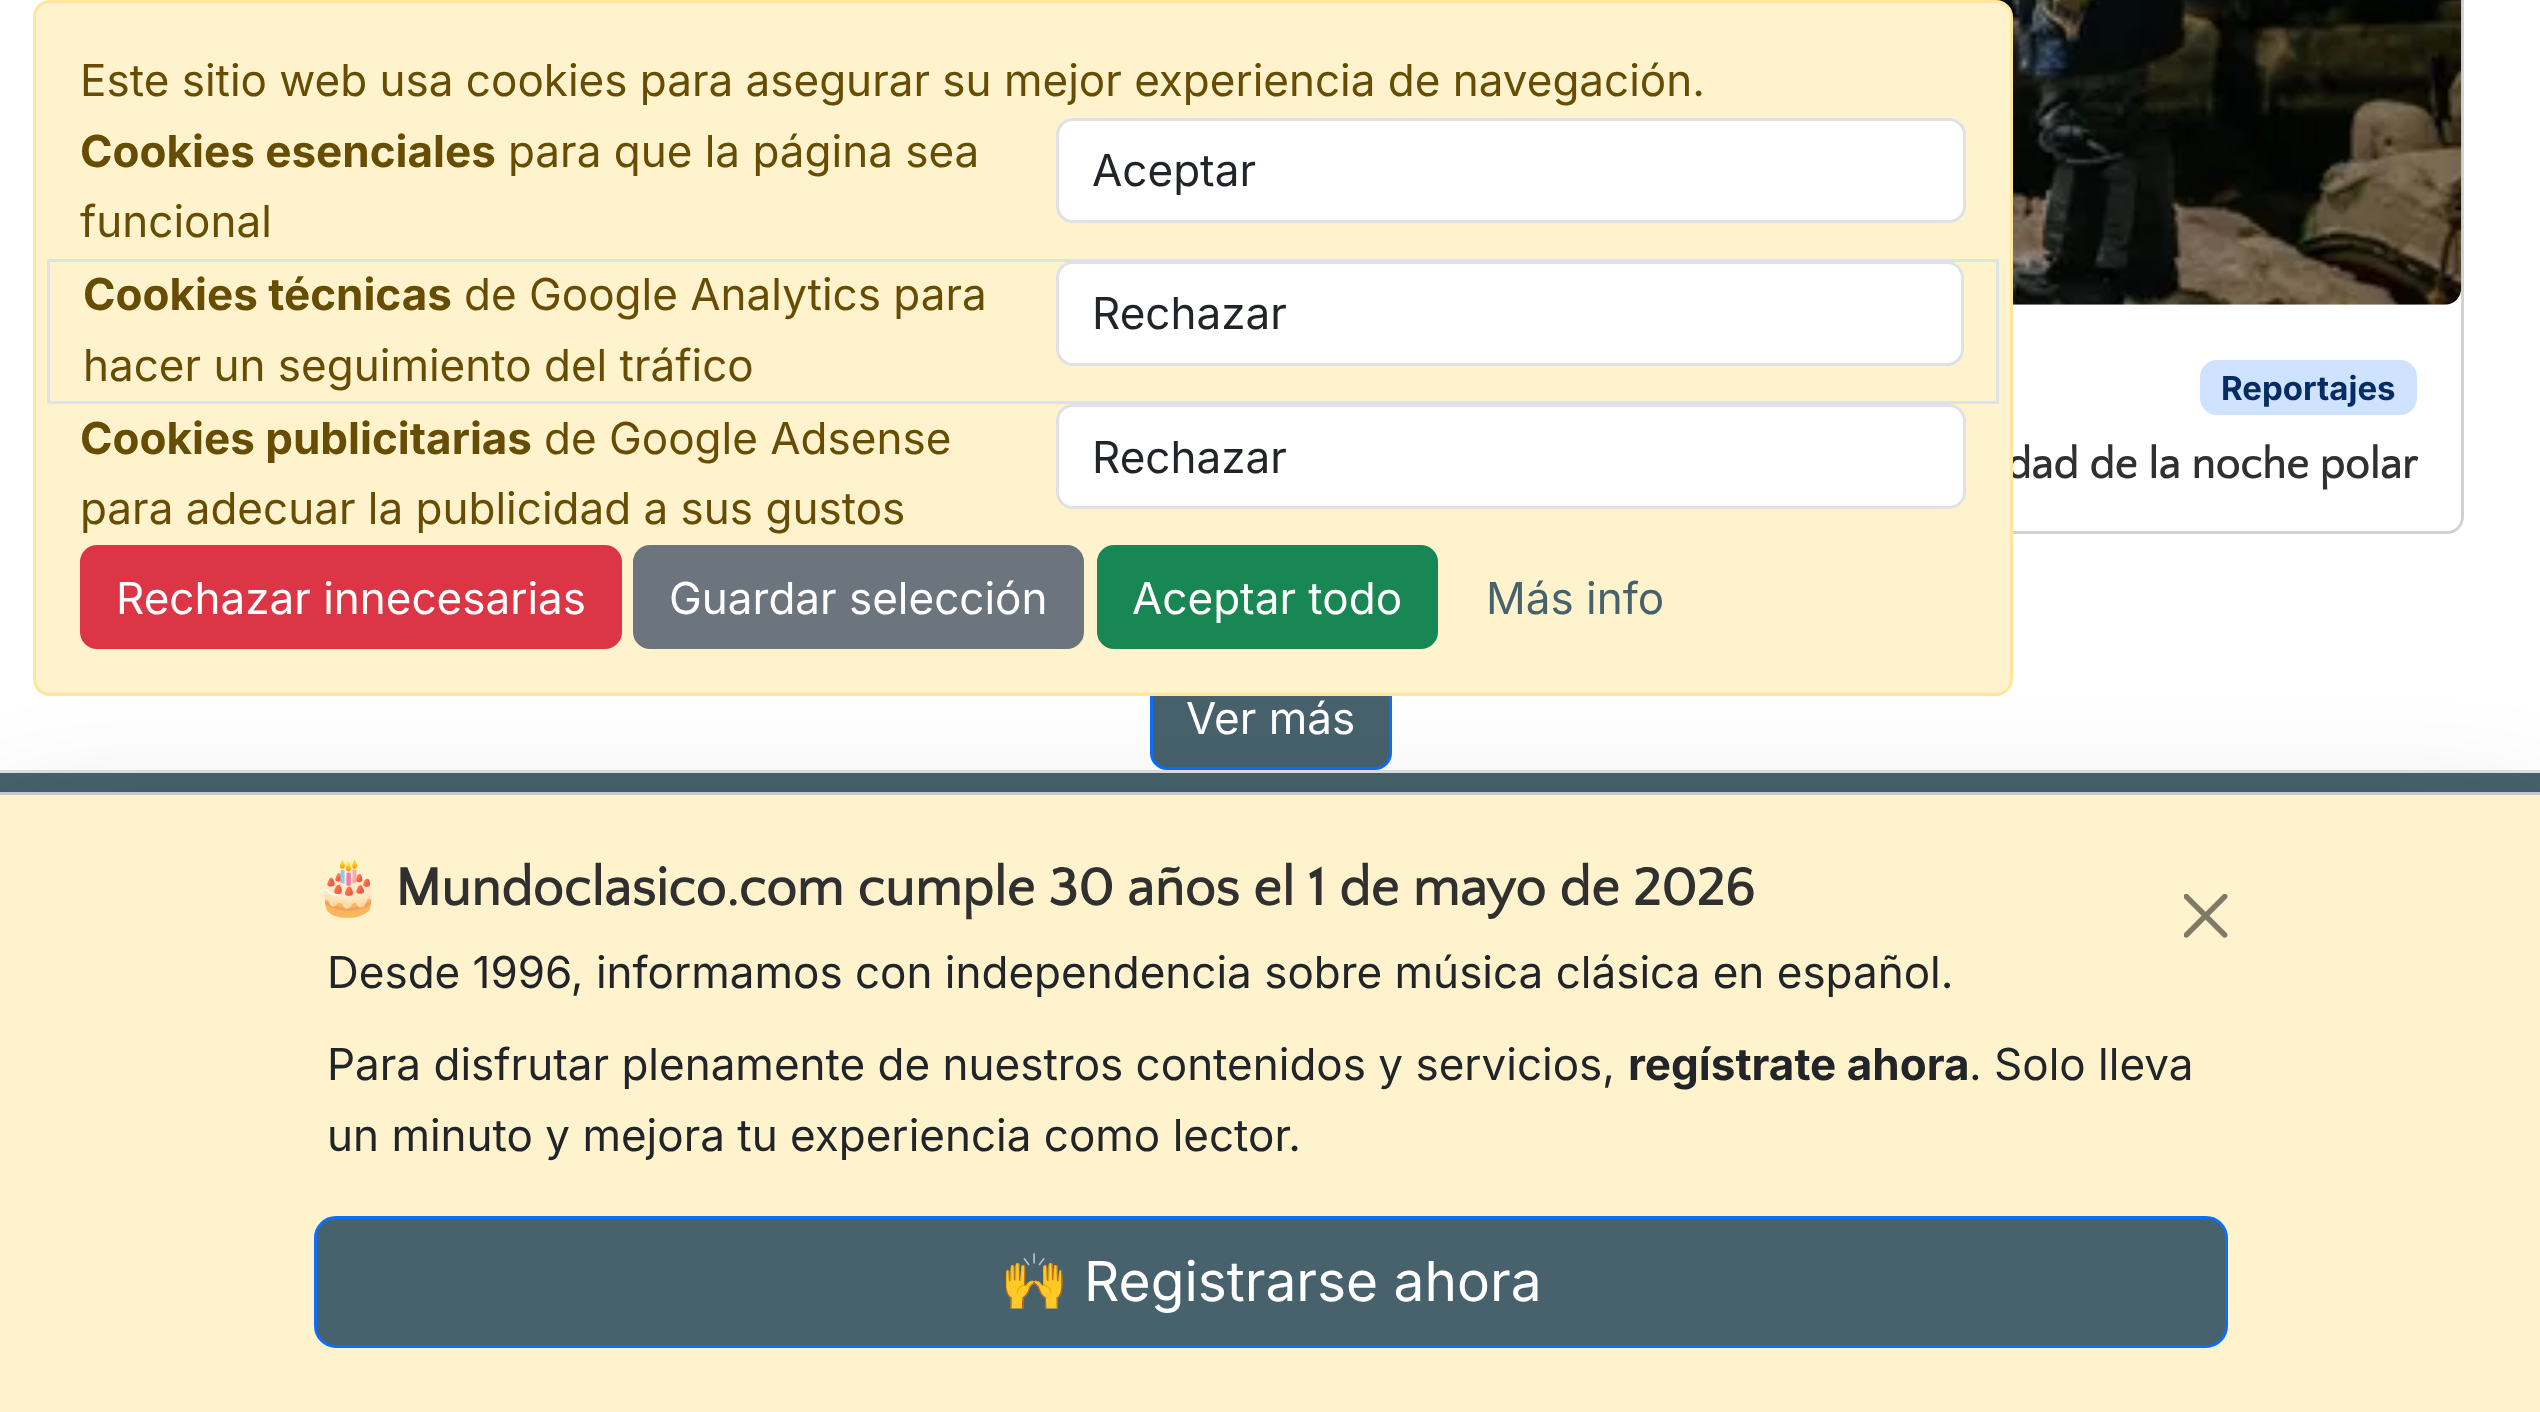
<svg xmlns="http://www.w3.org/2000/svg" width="2540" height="1412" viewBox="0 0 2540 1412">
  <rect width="100%" height="100%" fill="#fff"/>
  <rect x="1305.5" y="-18.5" width="1157" height="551" rx="15.5" fill="none" stroke="#d2d2d2" stroke-width="3"/>
  <image x="1996" y="0" width="466" height="305" href="img/1.png"/>
  <rect x="2200" y="360" width="217" height="55" rx="17" fill="#cfe2ff"/>
  <rect x="1151.5" y="667.5" width="239" height="101" rx="15.5" fill="#47626c" stroke="#0d6efd" stroke-width="3"/>
  <path d="M0 773h2540v19H0z" fill="#47626c"/>
  <path d="M0 770h2540v3H0z" fill="#e1e1e1"/>
  <path d="M0 836h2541v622H0z" fill="#0000002e" filter="blur(66px)"/>
  <path d="M0 795h2540v617H0z" fill="#fff3cd"/>
  <path d="M0 792h2540v3H0z" fill="#c4c8cb"/>
  <image x="2184" y="894" width="44" height="44" href="img/2.png"/>
  <rect x="315.5" y="1217.5" width="1911" height="129" rx="20.5" fill="#47626c" stroke="#0d6efd" stroke-width="3"/>
  <text x="2221" y="400" font-family="Inter" font-size="33" font-weight="bold" fill="#052c65">Reportajes</text>
  <text x="2006" y="478" font-family="Quattrocento Sans" font-size="44" font-weight="bold" fill="#303030">dad de la noche polar</text>
  <rect x="34.5" y="1.5" width="1977" height="693" rx="15.5" fill="#fff3cd" stroke="#ffe69c" stroke-width="3"/>
  <text x="1486" y="614" font-family="Inter" font-size="44" fill="#47626c">Más info</text>
  <rect x="1098.5" y="546.5" width="338" height="101" rx="15.5" fill="#198754" stroke="#198754" stroke-width="3"/>
  <text x="1132" y="614" font-family="Inter" font-size="44" fill="#fff">Aceptar todo</text>
  <rect x="634.5" y="546.5" width="448" height="101" rx="15.5" fill="#6c757d" stroke="#6c757d" stroke-width="3"/>
  <text x="669" y="614" font-family="Inter" font-size="44" fill="#fff">Guardar selección</text>
  <rect x="81.5" y="546.5" width="539" height="101" rx="15.5" fill="#dc3545" stroke="#dc3545" stroke-width="3"/>
  <text x="116" y="614" font-family="Inter" font-size="44" fill="#fff">Rechazar innecesarias</text>
  <rect x="1057.5" y="405.5" width="907" height="102" rx="15.5" fill="#fff" stroke="#dee2e6" stroke-width="3"/>
  <text x="1092" y="473" font-family="Inter" font-size="44" fill="#212529">Rechazar</text>
  <g font-family="Inter" font-size="44" fill="#664d03">
    <text x="80" y="524">para adecuar la publicidad a sus gustos</text>
    <text x="544" y="454">de Google Adsense</text>
  </g>
  <text x="80" y="454" font-family="Inter" font-size="44" font-weight="bold" fill="#664d03">Cookies publicitarias</text>
  <path d="M48.5 260.5h1949v142H48.5z" fill="none" stroke="#dee2e6" stroke-width="3"/>
  <rect x="1057.5" y="262.5" width="905" height="102" rx="15.5" fill="#fff" stroke="#dee2e6" stroke-width="3"/>
  <text x="1092" y="329" font-family="Inter" font-size="44" fill="#212529">Rechazar</text>
  <g font-family="Inter" font-size="44" fill="#664d03">
    <text x="83" y="381">hacer un seguimiento del tráfico</text>
    <text x="464" y="310">de Google Analytics para</text>
  </g>
  <text x="83" y="310" font-family="Inter" font-size="44" font-weight="bold" fill="#664d03">Cookies técnicas</text>
  <rect x="1057.5" y="119.5" width="907" height="102" rx="15.5" fill="#fff" stroke="#dee2e6" stroke-width="3"/>
  <text x="1092" y="186" font-family="Inter" font-size="44" fill="#212529">Aceptar</text>
  <g font-family="Inter" font-size="44" fill="#664d03">
    <text x="80" y="237">funcional</text>
    <text x="508" y="167">para que la página sea</text>
  </g>
  <text x="80" y="167" font-family="Inter" font-size="44" font-weight="bold" fill="#664d03">Cookies esenciales</text>
  <text x="80" y="96" font-family="Inter" font-size="44" fill="#664d03">Este sitio web usa cookies para asegurar su mejor experiencia de navegación.</text>
  <text x="1186" y="734" font-family="Inter" font-size="44" fill="#fff">Ver más</text>
  <text x="314" y="905" font-family="Noto Color Emoji" font-size="55" font-weight="bold" fill="#303030">🎂</text>
  <text x="395" y="905" font-family="Quattrocento Sans" font-size="55" font-weight="bold" fill="#303030">Mundoclasico.com cumple 30 años el 1 de mayo de 2026</text>
  <g font-family="Inter" font-size="44" fill="#212529">
    <text x="327" y="988">Desde 1996, informamos con independencia sobre música clásica en español.</text>
    <text x="327" y="1080">Para disfrutar plenamente de nuestros contenidos y servicios,</text>
  </g>
  <text x="1628" y="1080" font-family="Inter" font-size="44" font-weight="bold" fill="#212529">regístrate ahora</text>
  <g font-family="Inter" font-size="44" fill="#212529">
    <text x="1969" y="1080">. Solo lleva</text>
    <text x="327" y="1151">un minuto y mejora tu experiencia como lector.</text>
  </g>
  <text x="1000" y="1301" font-family="Noto Color Emoji" font-size="55" fill="#fff">🙌</text>
  <text x="1084" y="1301" font-family="Inter" font-size="55" fill="#fff">Registrarse ahora</text>
</svg>
